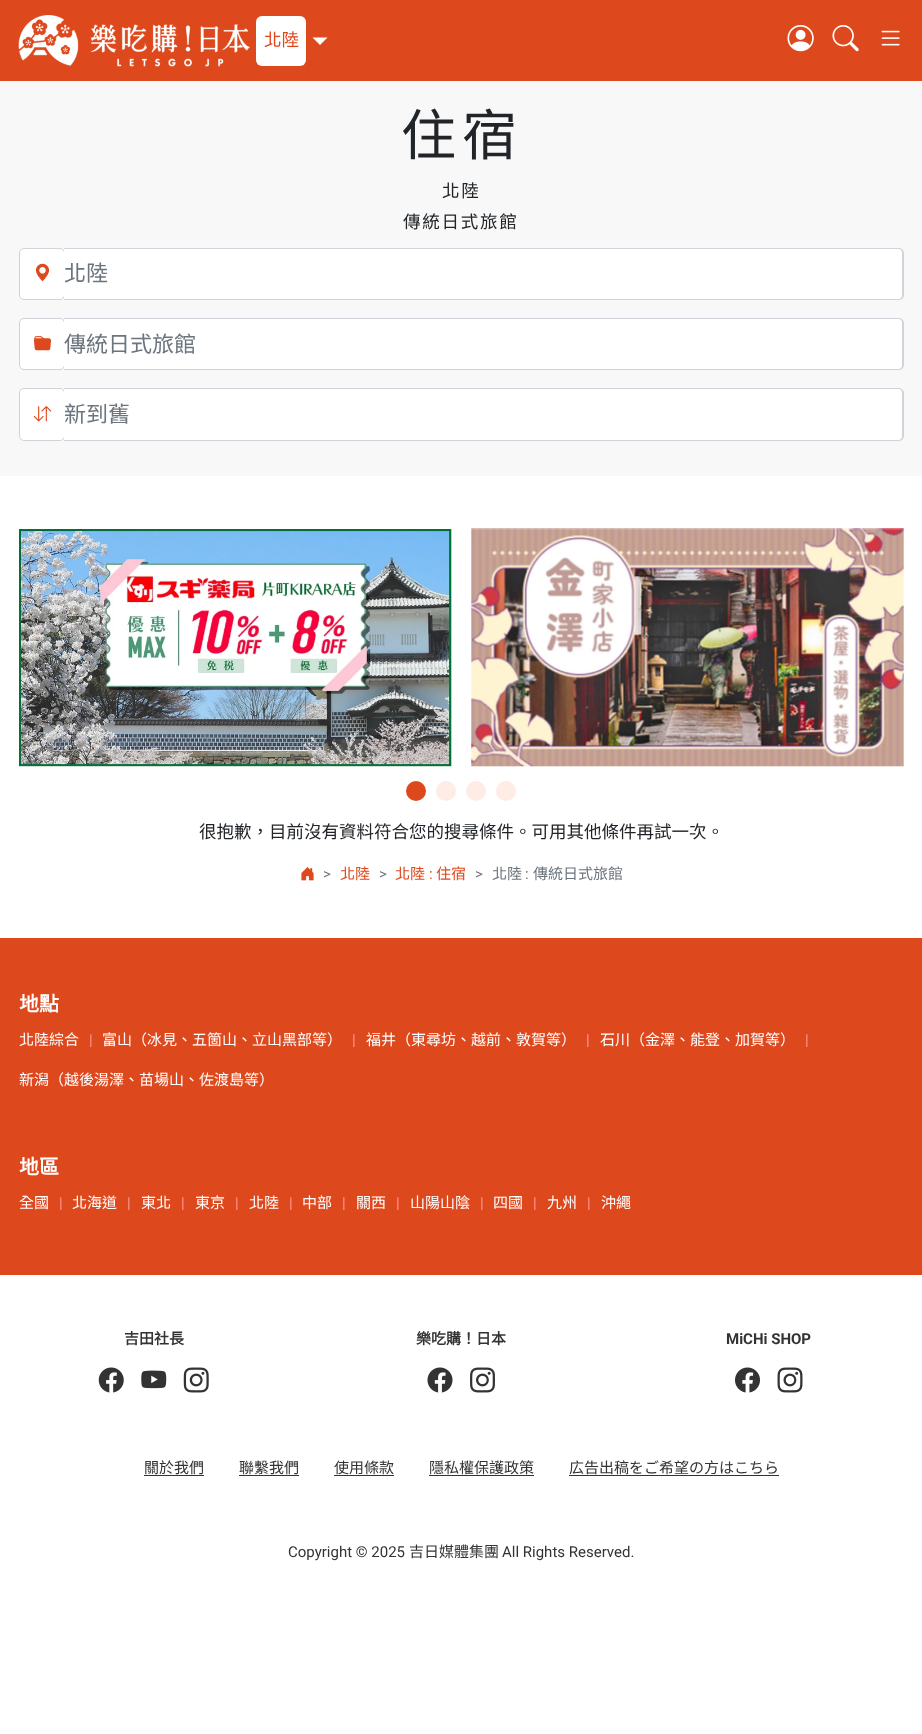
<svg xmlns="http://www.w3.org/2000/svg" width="922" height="1734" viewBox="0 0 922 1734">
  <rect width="100%" height="100%" fill="#fff"/>
  <path d="M0 0h922v81H0z" fill="#de481d"/>
  <image x="18" y="15" width="232" height="52" href="img/1.png"/>
  <rect x="256" y="16" width="50" height="50" rx="6" fill="#fff"/>
  <path d="M312.5 37.5H327.5L320 45Z" fill="#fff"/>
  <image x="787" y="25" width="27" height="27" href="img/2.png"/>
  <image x="832" y="25" width="27" height="27" href="img/3.png"/>
  <image x="881" y="30" width="19" height="16" href="img/4.png"/>
  <path d="M0 81h922v395H0z" fill="#f8f8f8"/>
  <rect x="19.5" y="248.5" width="45" height="51" rx="4.5" fill="#fff" stroke="#ced4da"/>
  <image x="35" y="263" width="15" height="19" href="img/5.png"/>
  <path d="M64 249H899C901 249 903 251 903 253V295C903 297 901 299 899 299H64Z" fill="#fff"/>
  <path d="M64 248H898C901 248 904 250 904 253V295C904 298 901 300 898 300H64ZM64 249H898C901 249 902 251 902 253V295C902 297 901 299 898 299H64Z" fill="#ced4da" fill-rule="evenodd"/>
  <rect x="19.5" y="318.5" width="45" height="51" rx="4.5" fill="#fff" stroke="#ced4da"/>
  <image x="34" y="336" width="17" height="15" href="img/6.png"/>
  <path d="M64 319H899C901 319 903 321 903 323V365C903 367 901 369 899 369H64Z" fill="#fff"/>
  <path d="M64 318H898C901 318 904 320 904 323V365C904 368 901 370 898 370H64ZM64 319H898C901 319 902 321 902 323V365C902 367 901 369 898 369H64Z" fill="#ced4da" fill-rule="evenodd"/>
  <rect x="19.5" y="388.5" width="45" height="52" rx="4.5" fill="#fff" stroke="#ced4da"/>
  <image x="33" y="406" width="19" height="16" href="img/7.png"/>
  <path d="M64 389H899C901 389 903 391 903 393V436C903 438 901 440 899 440H64Z" fill="#fff"/>
  <path d="M64 388H898C901 388 904 390 904 393V436C904 439 901 441 898 441H64ZM64 389H898C901 389 902 391 902 393V436C902 438 901 440 898 440H64Z" fill="#ced4da" fill-rule="evenodd"/>
  <image x="19" y="529" width="433" height="238" href="img/8.png"/>
  <image x="471" y="528" width="433" height="239" href="img/9.png"/>
  <circle cx="416" cy="791" r="10" fill="#de481d"/>
  <circle cx="446" cy="791" r="10" fill="#ffece4"/>
  <circle cx="476" cy="791" r="10" fill="#ffece4"/>
  <circle cx="506" cy="791" r="10" fill="#ffece4"/>
  <image x="301" y="867" width="13" height="14" href="img/10.png"/>
  <path d="M0 938h922v337H0z" fill="#de481d"/>
  <image x="98" y="1367" width="26" height="26" href="img/11.png"/>
  <image x="141" y="1370" width="26" height="19" href="img/12.png"/>
  <image x="183" y="1367" width="26" height="26" href="img/13.png"/>
  <image x="427" y="1367" width="26" height="26" href="img/14.png"/>
  <image x="470" y="1367" width="25" height="26" href="img/15.png"/>
  <image x="735" y="1367" width="25" height="26" href="img/16.png"/>
  <image x="777" y="1367" width="26" height="26" href="img/17.png"/>
  <path d="M144 1475h60v1H144z" fill="#333"/>
  <path d="M239 1475h60v1H239z" fill="#333"/>
  <path d="M334 1475h60v1H334z" fill="#333"/>
  <path d="M429 1475h105v1H429z" fill="#333"/>
  <path d="M569 1475h210v1H569z" fill="#333"/>
  <text x="264" y="46" font-family="Noto Sans CJK TC" font-size="17.5" fill="#de481d">北陸</text>
  <text x="401" y="155" font-family="Noto Sans CJK TC" font-size="55" letter-spacing="6" fill="#212529">住宿</text>
  <g font-family="Noto Sans CJK TC" font-size="17.5" letter-spacing="1.75" fill="#212529">
    <text x="442" y="197">北陸</text>
    <text x="403" y="228">傳統日式旅館</text>
  </g>
  <g font-family="Noto Sans CJK TC" font-size="22" fill="#6c757d">
    <text x="64" y="281">北陸</text>
    <text x="64" y="352">傳統日式旅館</text>
    <text x="64" y="422">新到舊</text>
  </g>
  <text x="199" y="838" font-family="Noto Sans CJK TC" font-size="17.5" fill="#212529">很抱歉，目前沒有資料符合您的搜尋條件。可用其他條件再試一次。</text>
  <text x="323" y="879" font-family="Roboto" font-size="15" fill="#6c757d">&gt;</text>
  <text x="340" y="879" font-family="Noto Sans CJK TC" font-size="15" fill="#de481d">北陸</text>
  <text x="379" y="879" font-family="Roboto" font-size="15" fill="#6c757d">&gt;</text>
  <text x="395" y="879" font-family="Noto Sans CJK TC" font-size="15" fill="#de481d">北陸</text>
  <text x="429" y="879" font-family="Roboto" font-size="15" fill="#de481d">:</text>
  <text x="436" y="879" font-family="Noto Sans CJK TC" font-size="15" fill="#de481d">住宿</text>
  <text x="475" y="879" font-family="Roboto" font-size="15" fill="#6c757d">&gt;</text>
  <text x="492" y="879" font-family="Noto Sans CJK TC" font-size="15" fill="#6c757d">北陸</text>
  <text x="525" y="879" font-family="Roboto" font-size="15" fill="#6c757d">:</text>
  <text x="533" y="879" font-family="Noto Sans CJK TC" font-size="15" fill="#6c757d">傳統日式旅館</text>
  <text x="19" y="1011" font-family="Noto Sans CJK TC" font-size="20" font-weight="bold" fill="#fff">地點</text>
  <text x="19" y="1045" font-family="Noto Sans CJK TC" font-size="15" fill="#fff">北陸綜合</text>
  <text x="89" y="1045" font-family="Roboto" font-size="15" fill="#f99">|</text>
  <text x="102" y="1045" font-family="Noto Sans CJK TC" font-size="15" fill="#fff">富山（冰見、五箇山、立山黑部等）</text>
  <text x="352" y="1045" font-family="Roboto" font-size="15" fill="#f99">|</text>
  <text x="366" y="1045" font-family="Noto Sans CJK TC" font-size="15" fill="#fff">福井（東尋坊、越前、敦賀等）</text>
  <text x="586" y="1045" font-family="Roboto" font-size="15" fill="#f99">|</text>
  <text x="600" y="1045" font-family="Noto Sans CJK TC" font-size="15" fill="#fff">石川（金澤、能登、加賀等）</text>
  <text x="805" y="1045" font-family="Roboto" font-size="15" fill="#f99">|</text>
  <text x="19" y="1085" font-family="Noto Sans CJK TC" font-size="15" fill="#fff">新潟（越後湯澤、苗場山、佐渡島等）</text>
  <text x="19" y="1174" font-family="Noto Sans CJK TC" font-size="20" font-weight="bold" fill="#fff">地區</text>
  <text x="19" y="1208" font-family="Noto Sans CJK TC" font-size="15" fill="#fff">全國</text>
  <text x="59" y="1208" font-family="Roboto" font-size="15" fill="#f99">|</text>
  <text x="72" y="1208" font-family="Noto Sans CJK TC" font-size="15" fill="#fff">北海道</text>
  <text x="127" y="1208" font-family="Roboto" font-size="15" fill="#f99">|</text>
  <text x="141" y="1208" font-family="Noto Sans CJK TC" font-size="15" fill="#fff">東北</text>
  <text x="181" y="1208" font-family="Roboto" font-size="15" fill="#f99">|</text>
  <text x="195" y="1208" font-family="Noto Sans CJK TC" font-size="15" fill="#fff">東京</text>
  <text x="235" y="1208" font-family="Roboto" font-size="15" fill="#f99">|</text>
  <text x="249" y="1208" font-family="Noto Sans CJK TC" font-size="15" fill="#fff">北陸</text>
  <text x="289" y="1208" font-family="Roboto" font-size="15" fill="#f99">|</text>
  <text x="302" y="1208" font-family="Noto Sans CJK TC" font-size="15" fill="#fff">中部</text>
  <text x="342" y="1208" font-family="Roboto" font-size="15" fill="#f99">|</text>
  <text x="356" y="1208" font-family="Noto Sans CJK TC" font-size="15" fill="#fff">關西</text>
  <text x="396" y="1208" font-family="Roboto" font-size="15" fill="#f99">|</text>
  <text x="410" y="1208" font-family="Noto Sans CJK TC" font-size="15" fill="#fff">山陽山陰</text>
  <text x="480" y="1208" font-family="Roboto" font-size="15" fill="#f99">|</text>
  <text x="493" y="1208" font-family="Noto Sans CJK TC" font-size="15" fill="#fff">四國</text>
  <text x="533" y="1208" font-family="Roboto" font-size="15" fill="#f99">|</text>
  <text x="547" y="1208" font-family="Noto Sans CJK TC" font-size="15" fill="#fff">九州</text>
  <text x="587" y="1208" font-family="Roboto" font-size="15" fill="#f99">|</text>
  <text x="601" y="1208" font-family="Noto Sans CJK TC" font-size="15" fill="#fff">沖繩</text>
  <g font-family="Noto Sans CJK TC" font-size="15" font-weight="bold" fill="#333">
    <text x="124" y="1344">吉田社長</text>
    <text x="416" y="1344">樂吃購！日本</text>
  </g>
  <text x="726" y="1344" font-family="Roboto" font-size="15" font-weight="bold" fill="#333">MiCHi SHOP</text>
  <g font-family="Noto Sans CJK TC" font-size="15" fill="#333">
    <text x="144" y="1473">關於我們</text>
    <text x="239" y="1473">聯繫我們</text>
    <text x="334" y="1473">使用條款</text>
    <text x="429" y="1473">隱私權保護政策</text>
    <text x="569" y="1473">広告出稿をご希望の方はこちら</text>
  </g>
  <text x="288" y="1557" font-family="Roboto" font-size="15" fill="#333">Copyright © 2025</text>
  <text x="409" y="1557" font-family="Noto Sans CJK TC" font-size="15" fill="#333">吉日媒體集團</text>
  <text x="502" y="1557" font-family="Roboto" font-size="15" fill="#333">All Rights Reserved.</text>
</svg>
